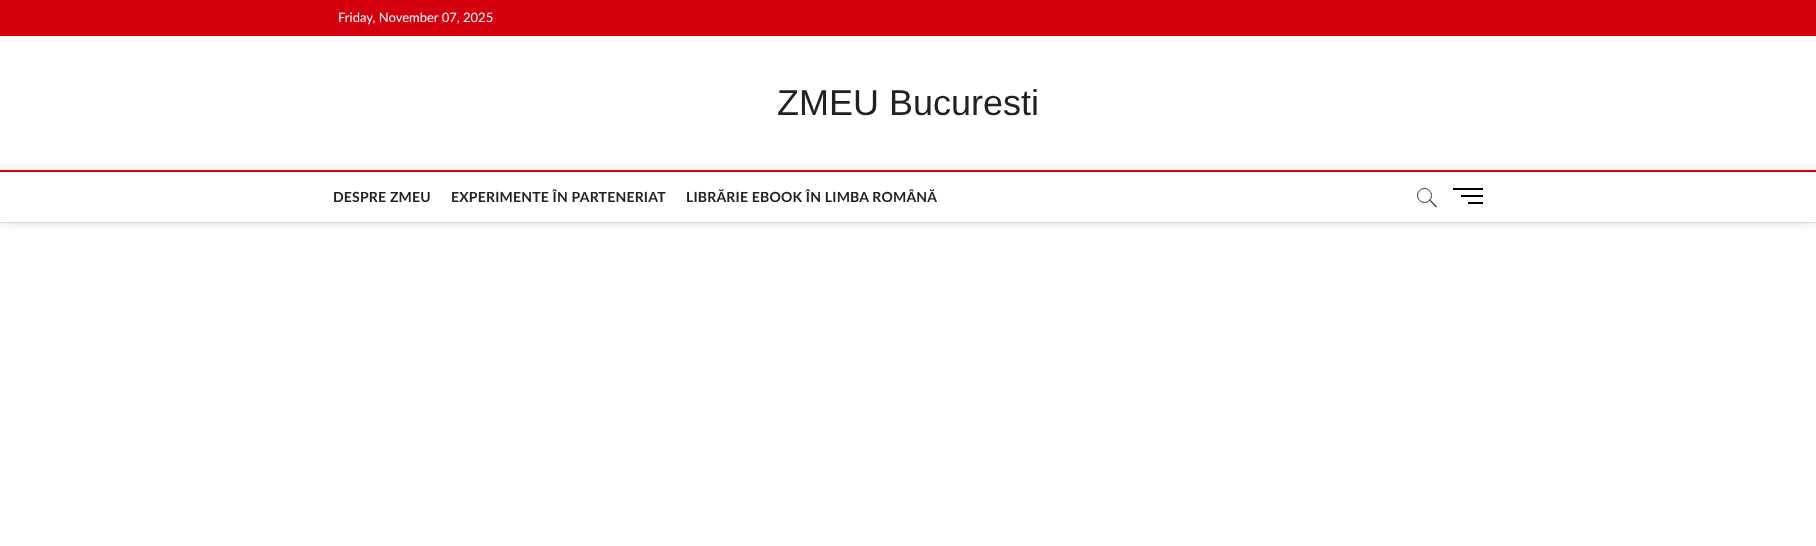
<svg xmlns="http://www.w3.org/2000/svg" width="1816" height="546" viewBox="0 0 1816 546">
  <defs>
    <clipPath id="clip1"><path d="M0 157H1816V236H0ZM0 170H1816V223H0Z" clip-rule="evenodd"/></clipPath>
  </defs>
  <rect width="100%" height="100%" fill="#fff"/>
  <path d="M0 0h1816v36H0z" fill="#d4000e"/>
  <g clip-path="url(#clip1)">
    <path d="M0 170h1816v53H0z" fill="#00000026" filter="blur(4px)"/>
  </g>
  <path d="M0 170h1816v2H0z" fill="#d4000e"/>
  <path d="M0 222h1816v1H0z" fill="#ddd"/>
  <circle cx="1424.5" cy="195.5" r="7" fill="none" stroke="#333"/>
  <path d="M1429 200L1430 199.5L1437 206.5L1436 207.5Z" fill="#333"/>
  <path d="M1461 195h22v2H1461z" fill="#000"/>
  <path d="M1453 188h30v2H1453z" fill="#000"/>
  <path d="M1468 202h15v2H1468z" fill="#000"/>
  <text x="338" y="22" font-family="Lato" font-size="13" fill="#fff">Friday, November 07, 2025</text>
  <text x="777" y="115" font-family="Liberation Sans" font-size="36" fill="#222">ZMEU Bucuresti</text>
  <g font-family="Lato" font-size="14" font-weight="bold" letter-spacing="0.2" fill="#222">
    <text x="333" y="202">DESPRE ZMEU</text>
    <text x="451" y="202">EXPERIMENTE ÎN PARTENERIAT</text>
    <text x="686" y="202">LIBRĂRIE EBOOK ÎN LIMBA ROMÂNĂ</text>
  </g>
</svg>
